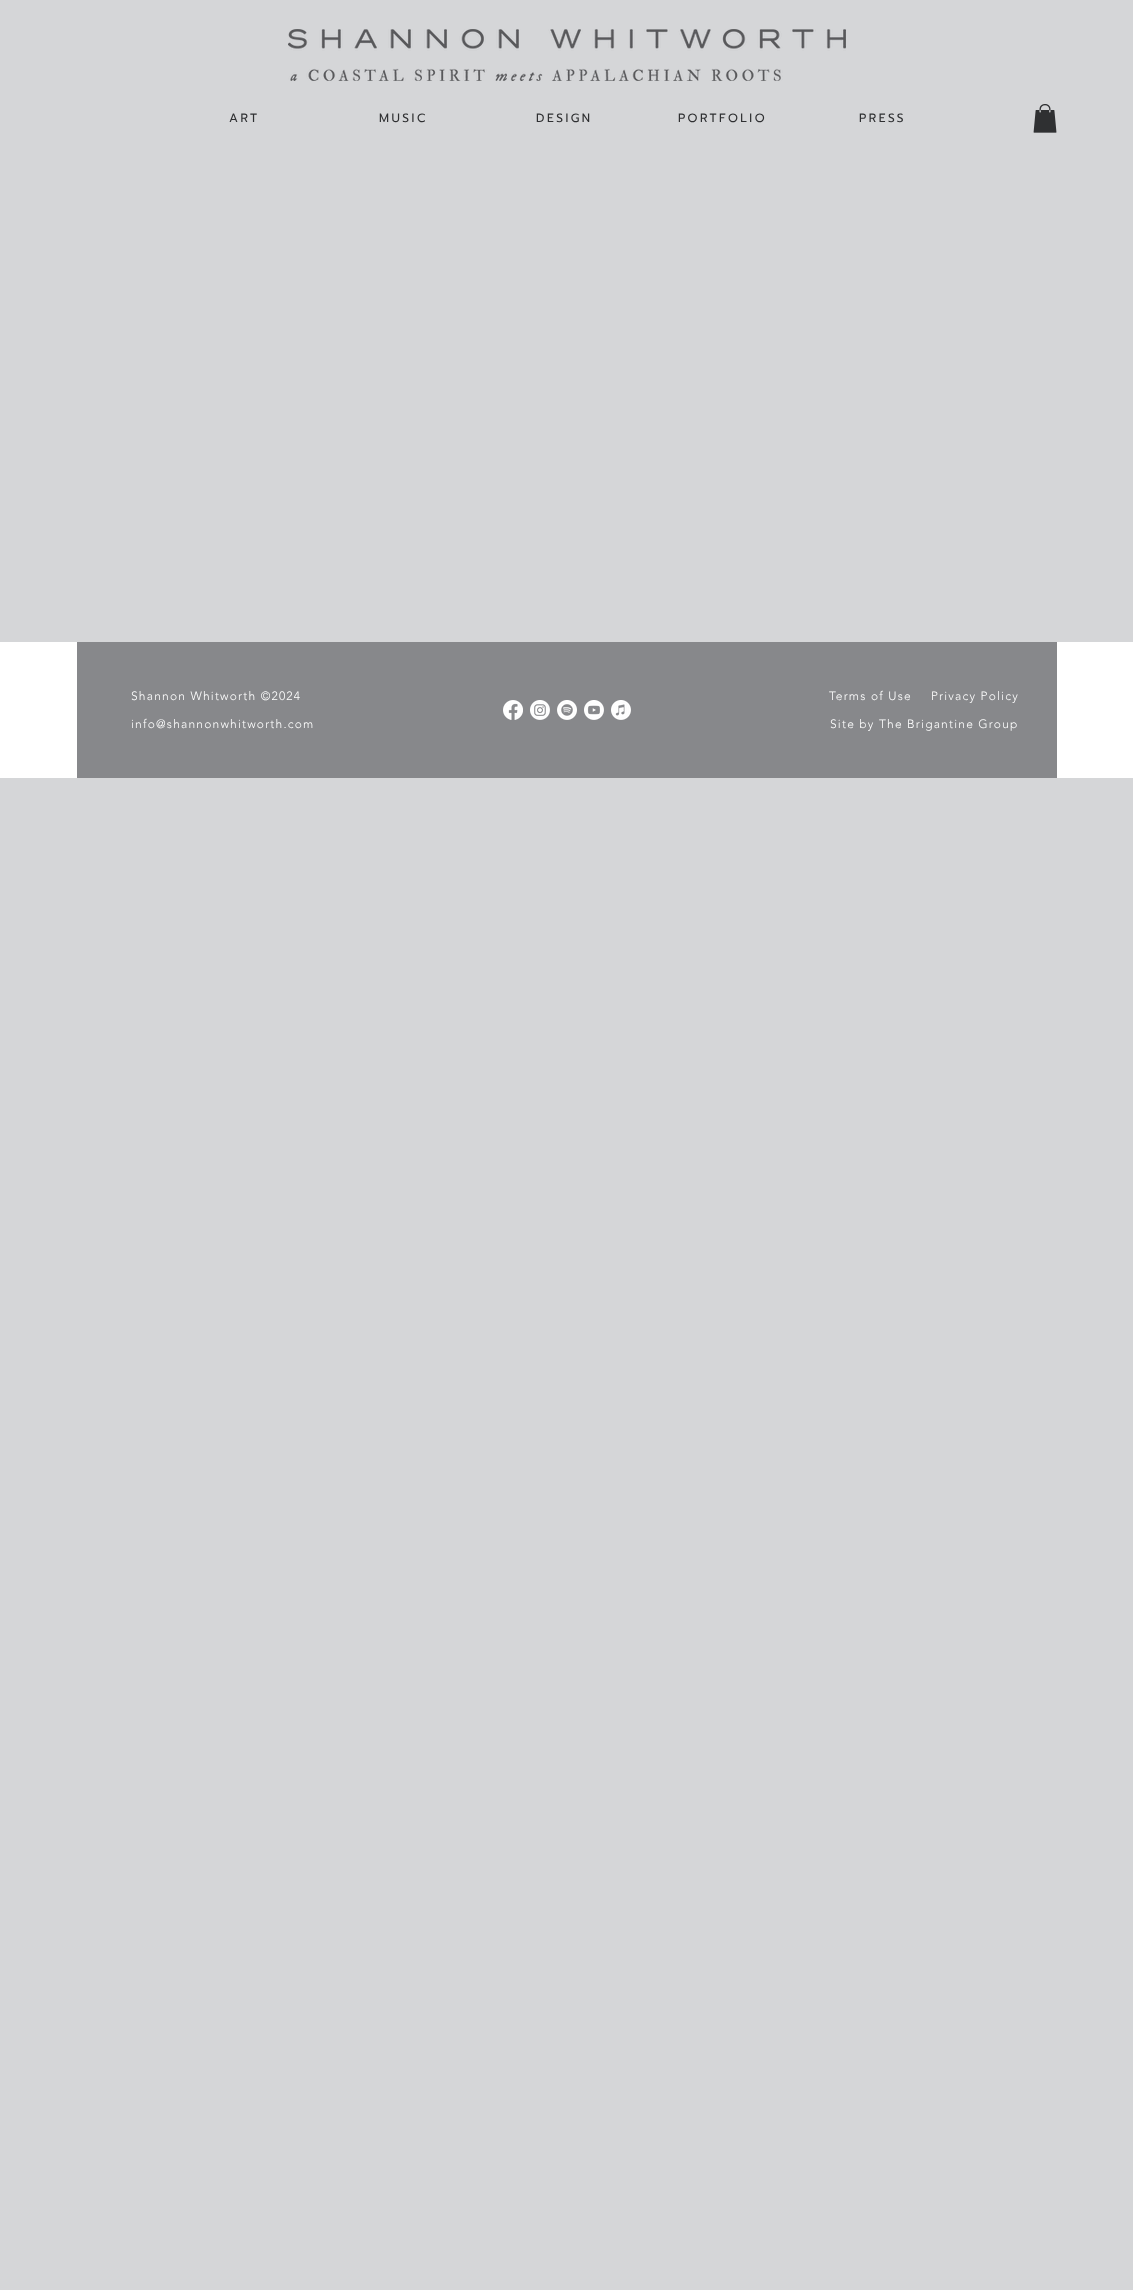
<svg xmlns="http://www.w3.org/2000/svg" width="1133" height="2290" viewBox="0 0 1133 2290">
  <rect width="100%" height="100%" fill="#d5d6d8"/>
  <image x="288" y="29" width="558" height="52" href="img/1.png"/>
  <image x="1033" y="104" width="24" height="29" href="img/2.png"/>
  <path d="M0 642h1133v136H0z" fill="#fff"/>
  <path d="M77 642h980v136H77z" fill="#87888b"/>
  <image x="503" y="700" width="20" height="20" href="img/3.png"/>
  <image x="530" y="700" width="20" height="20" href="img/4.png"/>
  <image x="557" y="700" width="20" height="20" href="img/5.png"/>
  <image x="584" y="700" width="20" height="20" href="img/6.png"/>
  <image x="611" y="700" width="20" height="20" href="img/7.png"/>
  <g font-family="Prompt" font-size="12" letter-spacing="2.5" fill="#2f3032">
    <text x="229" y="122">ART</text>
    <text x="379" y="122">MUSIC</text>
    <text x="536" y="122">DESIGN</text>
    <text x="678" y="122">PORTFOLIO</text>
    <text x="859" y="122">PRESS</text>
  </g>
  <g font-family="'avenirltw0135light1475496'" font-size="12" font-weight="300" letter-spacing="1.2" fill="#fff">
    <text x="131" y="700">Shannon Whitworth ©2024</text>
    <text x="829" y="700">Terms of Use</text>
    <text x="931" y="700">Privacy Policy</text>
    <text x="131" y="728">info@shannonwhitworth.com</text>
    <text x="830" y="728">Site by The Brigantine Group</text>
  </g>
</svg>
